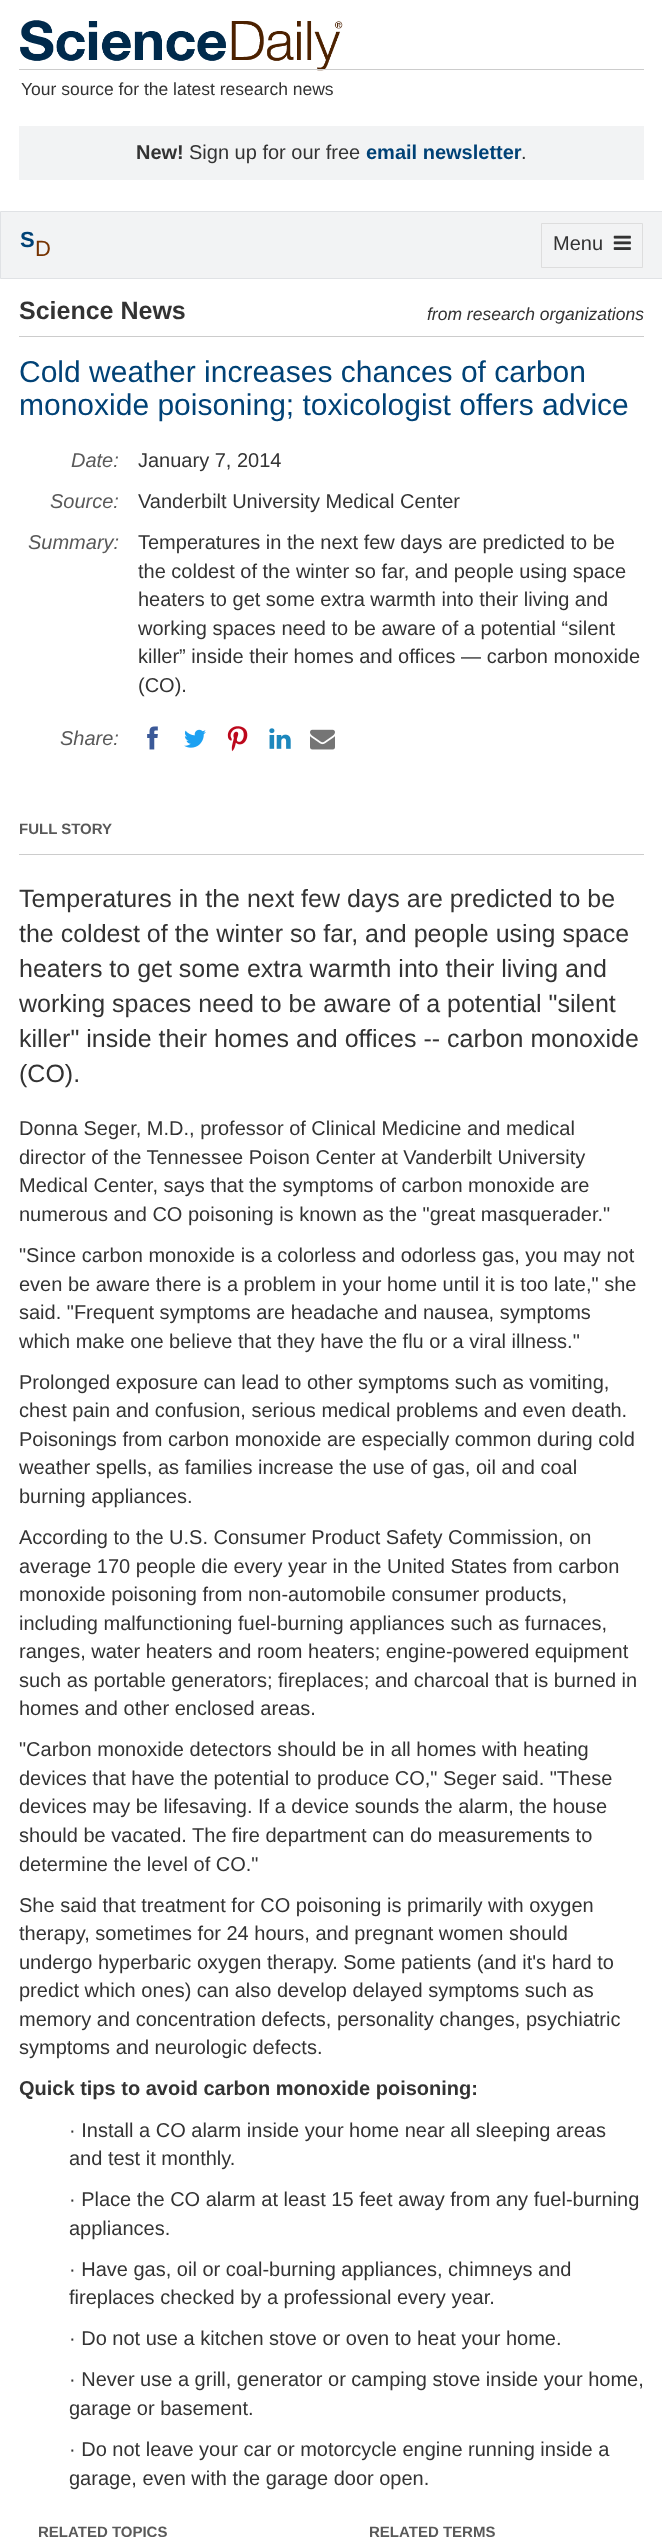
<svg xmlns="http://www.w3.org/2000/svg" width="662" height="2537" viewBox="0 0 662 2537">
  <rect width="100%" height="100%" fill="#fff"/>
  <image x="20" y="20" width="323" height="51" href="img/1.png"/>
  <path d="M19 69h625v1H19z" fill="#ccc"/>
  <path d="M19 126h625v54H19z" fill="#f2f3f4"/>
  <path d="M0.5 211.5h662v67H0.5z" fill="#f2f3f4" stroke="#e0e2e5"/>
  <path d="M541.5 223.5h101v44H541.5z" fill="none" stroke="#ddd"/>
  <image x="613" y="235" width="18" height="15" href="img/2.png"/>
  <path d="M19 336h625v1H19z" fill="#ccc"/>
  <image x="147" y="726" width="11" height="24" href="img/3.png"/>
  <image x="184" y="729" width="22" height="19" href="img/4.png"/>
  <image x="227" y="726" width="21" height="26" href="img/5.png"/>
  <image x="269" y="728" width="22" height="21" href="img/6.png"/>
  <image x="310" y="729" width="25" height="21" href="img/7.png"/>
  <path d="M19 854h625v1H19z" fill="#ccc"/>
  <text x="21" y="95" font-family="Liberation Sans" font-size="17.5" fill="#333">Your source for the latest research news</text>
  <text x="136" y="159" font-family="Liberation Sans" font-size="20" font-weight="bold" fill="#333">New!</text>
  <text x="189" y="159" font-family="Liberation Sans" font-size="20" fill="#333">Sign up for our free</text>
  <text x="366" y="159" font-family="Liberation Sans" font-size="20" font-weight="bold" fill="#004276">email newsletter</text>
  <text x="521" y="159" font-family="Liberation Sans" font-size="20" fill="#333">.</text>
  <text x="20" y="247" font-family="Liberation Sans" font-size="22" font-weight="bold" fill="#004276">S</text>
  <text x="35" y="256" font-family="Liberation Sans" font-size="22" fill="#763300">D</text>
  <text x="553" y="250" font-family="Liberation Sans" font-size="20" fill="#333">Menu</text>
  <text x="19" y="319" font-family="Liberation Sans" font-size="25" font-weight="bold" fill="#333">Science News</text>
  <text x="427" y="320" font-family="Liberation Sans" font-size="17.5" font-style="italic" fill="#333">from research organizations</text>
  <g font-family="Liberation Sans" font-size="30" fill="#004276">
    <text x="19" y="382">Cold weather increases chances of carbon</text>
    <text x="19" y="415">monoxide poisoning; toxicologist offers advice</text>
  </g>
  <text x="71" y="467" font-family="Liberation Sans" font-size="20" font-style="italic" fill="#595959">Date:</text>
  <text x="138" y="467" font-family="Liberation Sans" font-size="20" fill="#333">January 7, 2014</text>
  <text x="50" y="508" font-family="Liberation Sans" font-size="20" font-style="italic" fill="#595959">Source:</text>
  <text x="138" y="508" font-family="Liberation Sans" font-size="20" fill="#333">Vanderbilt University Medical Center</text>
  <text x="28" y="549" font-family="Liberation Sans" font-size="20" font-style="italic" fill="#595959">Summary:</text>
  <g font-family="Liberation Sans" font-size="20" fill="#333">
    <text x="138" y="549">Temperatures in the next few days are predicted to be</text>
    <text x="138" y="578">the coldest of the winter so far, and people using space</text>
    <text x="138" y="606">heaters to get some extra warmth into their living and</text>
    <text x="138" y="635">working spaces need to be aware of a potential “silent</text>
    <text x="138" y="663">killer” inside their homes and offices — carbon monoxide</text>
    <text x="138" y="692">(CO).</text>
  </g>
  <text x="60" y="745" font-family="Liberation Sans" font-size="20" font-style="italic" fill="#595959">Share:</text>
  <text x="19" y="834" font-family="Liberation Sans" font-size="15" font-weight="bold" fill="#595959">FULL STORY</text>
  <g font-family="Liberation Sans" font-size="25" fill="#333">
    <text x="19" y="907">Temperatures in the next few days are predicted to be</text>
    <text x="19" y="942">the coldest of the winter so far, and people using space</text>
    <text x="19" y="977">heaters to get some extra warmth into their living and</text>
    <text x="19" y="1012">working spaces need to be aware of a potential "silent</text>
    <text x="19" y="1047">killer" inside their homes and offices -- carbon monoxide</text>
    <text x="19" y="1082">(CO).</text>
  </g>
  <g font-family="Liberation Sans" font-size="20" fill="#333">
    <text x="19" y="1135">Donna Seger, M.D., professor of Clinical Medicine and medical</text>
    <text x="19" y="1164">director of the Tennessee Poison Center at Vanderbilt University</text>
    <text x="19" y="1192">Medical Center, says that the symptoms of carbon monoxide are</text>
    <text x="19" y="1221">numerous and CO poisoning is known as the "great masquerader."</text>
    <text x="19" y="1262">"Since carbon monoxide is a colorless and odorless gas, you may not</text>
    <text x="19" y="1291">even be aware there is a problem in your home until it is too late," she</text>
    <text x="19" y="1319">said. "Frequent symptoms are headache and nausea, symptoms</text>
    <text x="19" y="1348">which make one believe that they have the flu or a viral illness."</text>
    <text x="19" y="1389">Prolonged exposure can lead to other symptoms such as vomiting,</text>
    <text x="19" y="1417">chest pain and confusion, serious medical problems and even death.</text>
    <text x="19" y="1446">Poisonings from carbon monoxide are especially common during cold</text>
    <text x="19" y="1474">weather spells, as families increase the use of gas, oil and coal</text>
    <text x="19" y="1503">burning appliances.</text>
    <text x="19" y="1544">According to the U.S. Consumer Product Safety Commission, on</text>
    <text x="19" y="1573">average 170 people die every year in the United States from carbon</text>
    <text x="19" y="1601">monoxide poisoning from non-automobile consumer products,</text>
    <text x="19" y="1630">including malfunctioning fuel-burning appliances such as furnaces,</text>
    <text x="19" y="1658">ranges, water heaters and room heaters; engine-powered equipment</text>
    <text x="19" y="1687">such as portable generators; fireplaces; and charcoal that is burned in</text>
    <text x="19" y="1715">homes and other enclosed areas.</text>
    <text x="19" y="1756">"Carbon monoxide detectors should be in all homes with heating</text>
    <text x="19" y="1785">devices that have the potential to produce CO," Seger said. "These</text>
    <text x="19" y="1813">devices may be lifesaving. If a device sounds the alarm, the house</text>
    <text x="19" y="1842">should be vacated. The fire department can do measurements to</text>
    <text x="19" y="1871">determine the level of CO."</text>
    <text x="19" y="1912">She said that treatment for CO poisoning is primarily with oxygen</text>
    <text x="19" y="1940">therapy, sometimes for 24 hours, and pregnant women should</text>
    <text x="19" y="1969">undergo hyperbaric oxygen therapy. Some patients (and it's hard to</text>
    <text x="19" y="1997">predict which ones) can also develop delayed symptoms such as</text>
    <text x="19" y="2026">memory and concentration defects, personality changes, psychiatric</text>
    <text x="19" y="2054">symptoms and neurologic defects.</text>
  </g>
  <text x="19" y="2095" font-family="Liberation Sans" font-size="20" font-weight="bold" fill="#333">Quick tips to avoid carbon monoxide poisoning:</text>
  <g font-family="Liberation Sans" font-size="20" fill="#333">
    <text x="69" y="2137">· Install a CO alarm inside your home near all sleeping areas</text>
    <text x="69" y="2165">and test it monthly.</text>
    <text x="69" y="2206">· Place the CO alarm at least 15 feet away from any fuel-burning</text>
    <text x="69" y="2235">appliances.</text>
    <text x="69" y="2276">· Have gas, oil or coal-burning appliances, chimneys and</text>
    <text x="69" y="2304">fireplaces checked by a professional every year.</text>
    <text x="69" y="2345">· Do not use a kitchen stove or oven to heat your home.</text>
    <text x="69" y="2386">· Never use a grill, generator or camping stove inside your home,</text>
    <text x="69" y="2415">garage or basement.</text>
    <text x="69" y="2456">· Do not leave your car or motorcycle engine running inside a</text>
    <text x="69" y="2485">garage, even with the garage door open.</text>
  </g>
  <g font-family="Liberation Sans" font-size="15" font-weight="bold" fill="#595959">
    <text x="38" y="2537">RELATED TOPICS</text>
    <text x="369" y="2537">RELATED TERMS</text>
  </g>
</svg>
